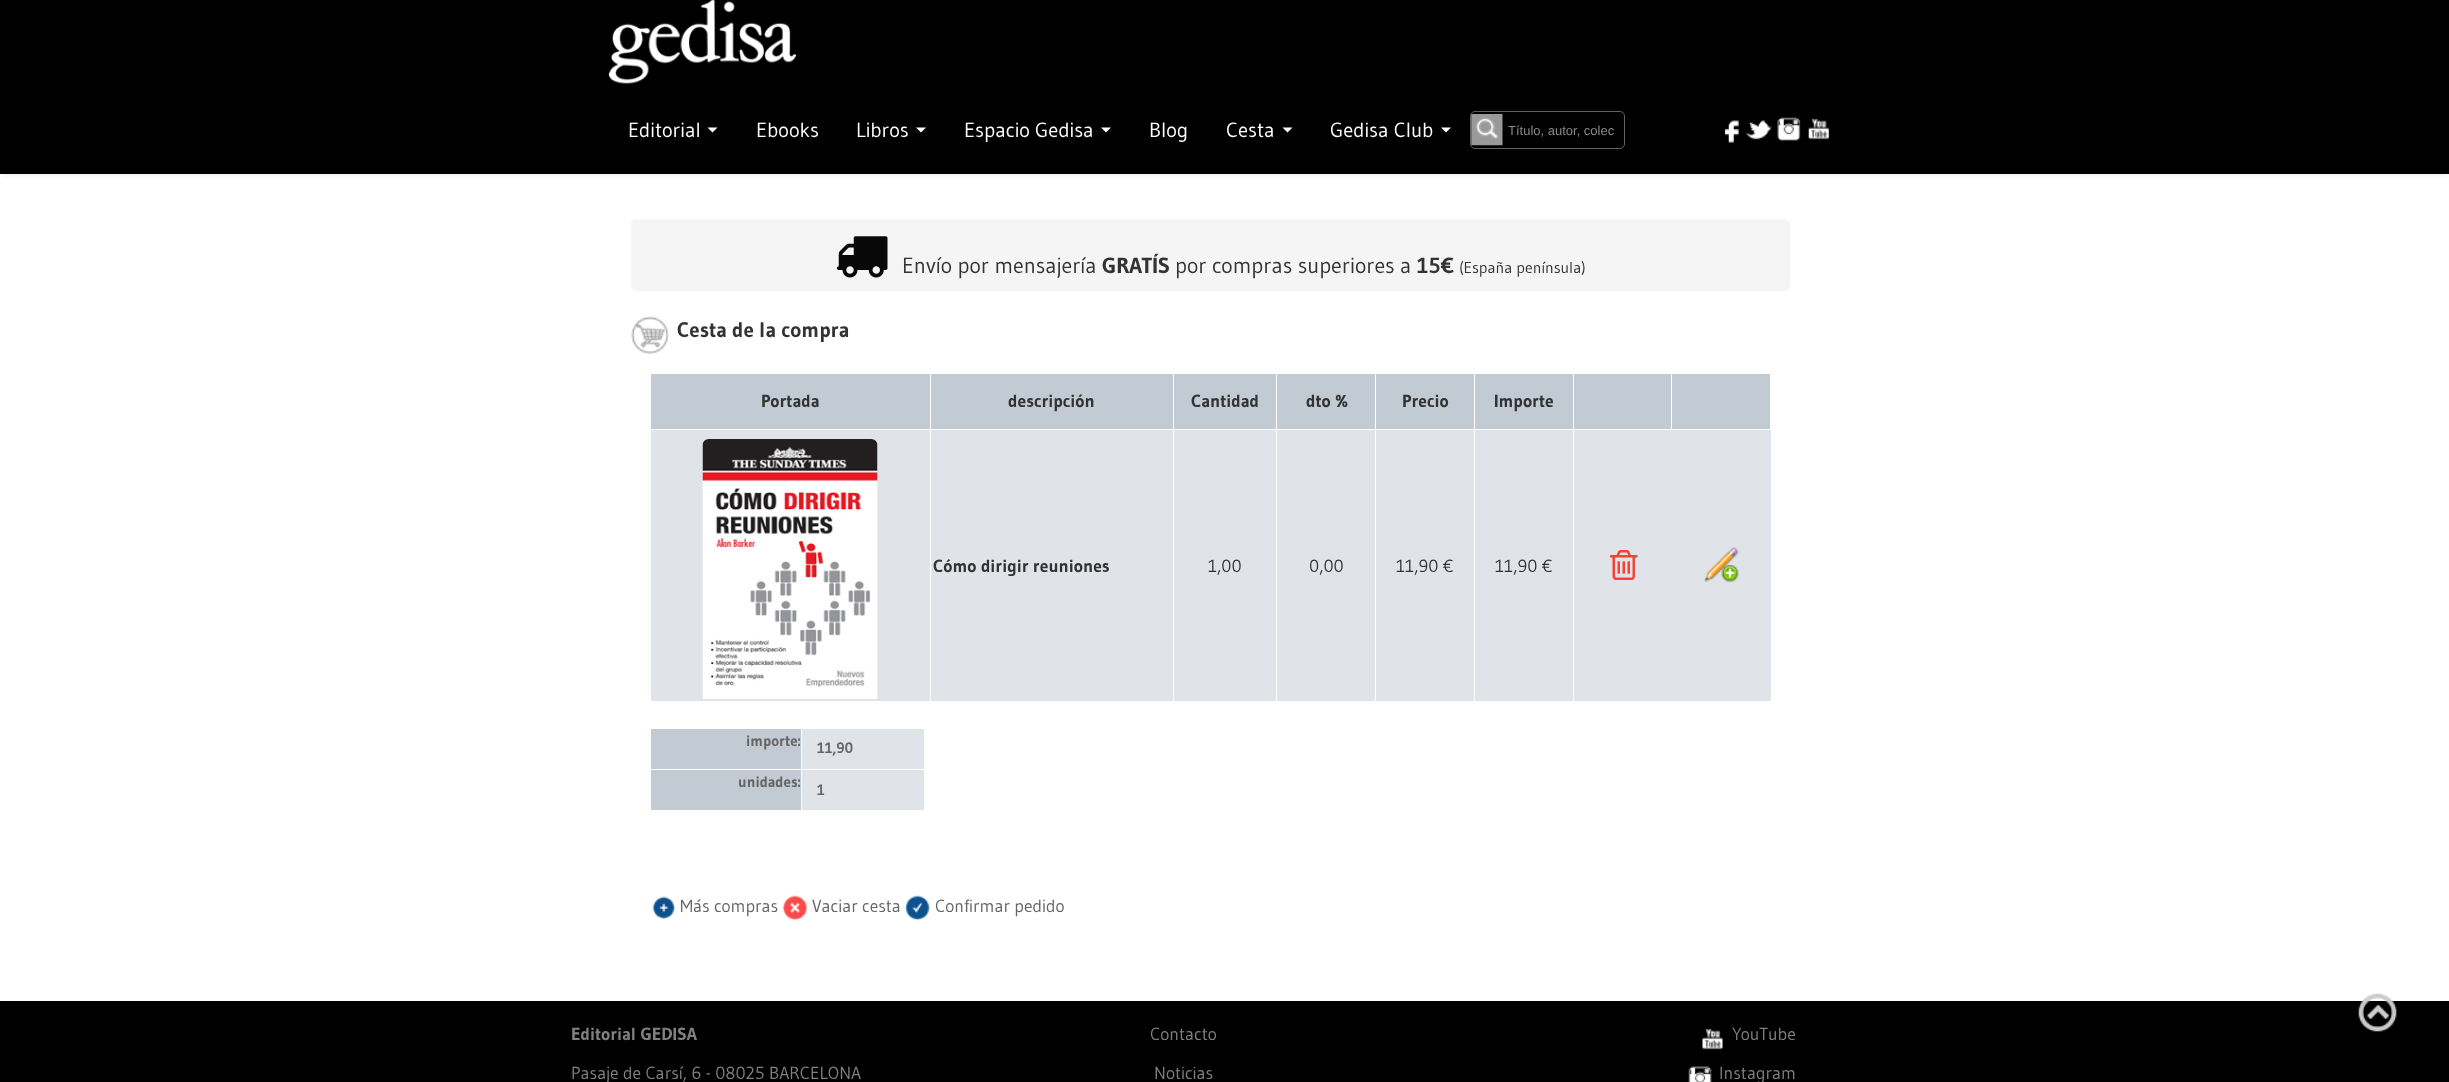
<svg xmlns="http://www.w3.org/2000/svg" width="2449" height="1082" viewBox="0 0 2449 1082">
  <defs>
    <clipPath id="clip1"><path d="M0 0H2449V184H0ZM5-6H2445C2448-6 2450-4 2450-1V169C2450 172 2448 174 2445 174H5C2 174 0 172 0 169V-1C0-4 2-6 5-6Z" clip-rule="evenodd"/></clipPath>
  </defs>
  <rect width="100%" height="100%" fill="#fff"/>
  <path d="M0 0h2449v174H0z" fill="#000"/>
  <g clip-path="url(#clip1)">
    <rect y="-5" width="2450" height="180" rx="5" fill="#00000012" filter="blur(2.5px)"/>
  </g>
  <image x="608" y="0" width="189" height="84" href="img/1.png"/>
  <path d="M707.5 127.5H717.5L712.5 132.5Z" fill="#fff"/>
  <path d="M916 127.5H926L921 132.5Z" fill="#fff"/>
  <path d="M1101 127.5H1111L1106 132.5Z" fill="#fff"/>
  <path d="M1282.5 127.5H1292.5L1287.5 132.5Z" fill="#fff"/>
  <path d="M1441 127.5H1451L1446 132.5Z" fill="#fff"/>
  <image x="1471" y="114" width="32" height="32" href="img/2.png"/>
  <path d="M1475 114H1620C1622 114 1624 115 1624 118C1624 116 1623 114 1621 113H1475C1472 113 1471 115 1471 118C1471 115 1473 114 1475 114Z" fill="#00000012"/>
  <rect x="1470.5" y="111.5" width="154" height="37" rx="4.5" fill="none" stroke="#616161"/>
  <image x="1724" y="120" width="15" height="23" href="img/3.png"/>
  <image x="1746" y="120" width="26" height="20" href="img/4.png"/>
  <image x="1777" y="117" width="24" height="24" href="img/5.png"/>
  <image x="1808" y="118" width="21" height="22" href="img/6.png"/>
  <rect x="631" y="219" width="1159" height="72" rx="5" fill="#f5f5f5"/>
  <image x="836" y="236" width="52" height="42" href="img/7.png"/>
  <image x="631" y="316" width="38" height="38" href="img/8.png"/>
  <path d="M1574 374h196v55H1574z" fill="#c2cad3"/>
  <path d="M1671 373h1v57H1671z" fill="#fff"/>
  <path d="M651 374h279v55H651z" fill="#c2cad3"/>
  <path d="M931 374h242v55H931z" fill="#c2cad3"/>
  <path d="M1174 374h201v55H1174z" fill="#c2cad3"/>
  <path d="M1376 374h98v55H1376z" fill="#c2cad3"/>
  <path d="M1475 374h98v55H1475z" fill="#c2cad3"/>
  <path d="M651 430h279v271H651z" fill="#e0e4e9"/>
  <image x="702" y="439" width="176" height="260" href="img/9.png"/>
  <path d="M1574 430h197v271H1574z" fill="#e0e4e9"/>
  <image x="1610" y="550" width="28" height="30" href="img/10.png"/>
  <path d="M931 430h242v271H931z" fill="#e0e4e9"/>
  <path d="M1174 430h201v271H1174z" fill="#e0e4e9"/>
  <path d="M1276 373h1v330H1276z" fill="#fff"/>
  <path d="M1376 430h98v271H1376z" fill="#e0e4e9"/>
  <path d="M1475 430h98v271H1475z" fill="#e0e4e9"/>
  <image x="1704" y="547" width="35" height="36" href="img/11.png"/>
  <path d="M651 729h150v40H651z" fill="#c2cad3"/>
  <path d="M802 729h122v40H802z" fill="#e0e4e9"/>
  <path d="M651 770h150v40H651z" fill="#c2cad3"/>
  <path d="M802 770h122v40H802z" fill="#e0e4e9"/>
  <image x="652" y="896" width="23" height="23" href="img/12.png"/>
  <image x="782" y="895" width="26" height="26" href="img/13.png"/>
  <image x="905" y="895" width="25" height="26" href="img/14.png"/>
  <path d="M0 1001h2449v81H0z" fill="#000"/>
  <image x="2358" y="993" width="39" height="39" href="img/15.png"/>
  <image x="1702" y="1028" width="21" height="22" href="img/16.png"/>
  <image x="1688" y="1066" width="24" height="16" href="img/17.png"/>
  <g font-family="Gudea" font-size="20.5" fill="#fff">
    <text x="628" y="137">Editorial</text>
    <text x="756" y="137">Ebooks</text>
    <text x="856" y="137">Libros</text>
    <text x="964" y="137">Espacio Gedisa</text>
    <text x="1149" y="137">Blog</text>
    <text x="1226" y="137">Cesta</text>
    <text x="1330" y="137">Gedisa Club</text>
  </g>
  <text x="1508" y="135" font-family="Liberation Sans" font-size="13" fill="#888">Título, autor, colec</text>
  <text x="902" y="273" font-family="Gudea" font-size="21.9" fill="#333">Envío por mensajería</text>
  <text x="1102" y="273" font-family="Gudea" font-size="21.9" font-weight="bold" fill="#333">GRATÍS</text>
  <text x="1175" y="273" font-family="Gudea" font-size="21.9" fill="#333">por compras superiores a</text>
  <text x="1417" y="273" font-family="Gudea" font-size="21.9" font-weight="bold" fill="#333">15€</text>
  <text x="1459" y="273" font-family="Gudea" font-size="15.75" fill="#333">(España península)</text>
  <text x="677" y="337" font-family="Gudea" font-size="21" font-weight="bold" fill="#333">Cesta de la compra</text>
  <g font-family="Gudea" font-size="17.5" font-weight="bold" fill="#333">
    <text x="761" y="407">Portada</text>
    <text x="1008" y="407">descripción</text>
    <text x="1191" y="407">Cantidad</text>
    <text x="1306" y="407">dto %</text>
    <text x="1402" y="407">Precio</text>
    <text x="1494" y="407">Importe</text>
    <text x="933" y="572">Cómo dirigir reuniones</text>
  </g>
  <g font-family="Gudea" font-size="17.5" fill="#333">
    <text x="1208" y="572">1,00</text>
    <text x="1309" y="572">0,00</text>
    <text x="1396" y="572">11,90 €</text>
    <text x="1495" y="572">11,90 €</text>
  </g>
  <g font-family="Gudea" font-size="15" font-weight="bold" fill="#666">
    <text x="746" y="746">importe:</text>
    <text x="817" y="753">11,90</text>
    <text x="738" y="787">unidades:</text>
    <text x="817" y="795">1</text>
  </g>
  <g font-family="Gudea" font-size="17.5" fill="#666">
    <text x="680" y="912">Más compras</text>
    <text x="812" y="912">Vaciar cesta</text>
    <text x="935" y="912">Confirmar pedido</text>
  </g>
  <text x="571" y="1040" font-family="Gudea" font-size="17.5" font-weight="bold" fill="#808080">Editorial GEDISA</text>
  <g font-family="Gudea" font-size="17.5" fill="#808080">
    <text x="571" y="1079">Pasaje de Carsí, 6 - 08025 BARCELONA</text>
    <text x="1150" y="1040">Contacto</text>
    <text x="1154" y="1079">Noticias</text>
    <text x="1732" y="1040">YouTube</text>
    <text x="1719" y="1079">Instagram</text>
  </g>
</svg>
